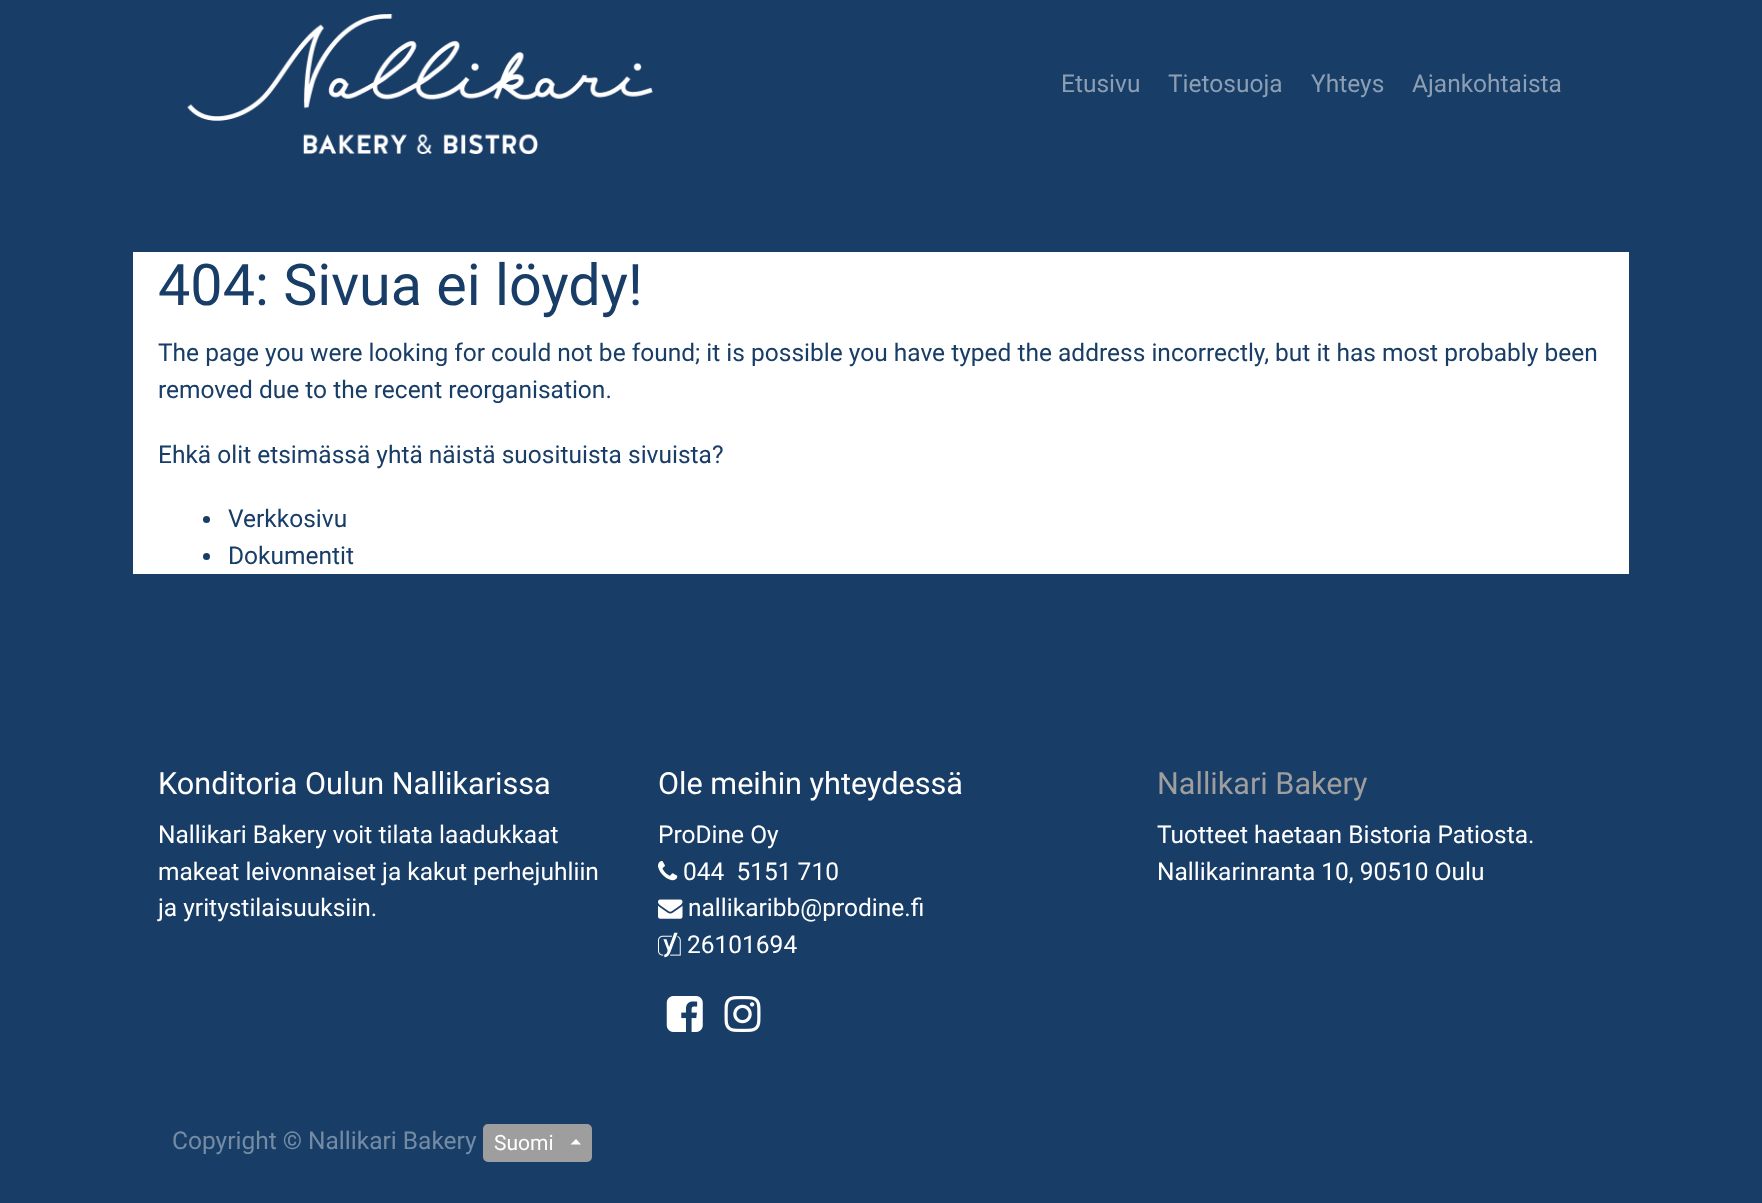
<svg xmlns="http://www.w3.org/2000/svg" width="1762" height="1203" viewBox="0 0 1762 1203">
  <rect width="100%" height="100%" fill="#183d67"/>
  <image x="187" y="14" width="466" height="140" href="img/1.png"/>
  <path d="M133 252h1496v322H133z" fill="#fff"/>
  <circle cx="206.5" cy="519.5" r="3.5" fill="#183d67"/>
  <circle cx="206.5" cy="556.5" r="3.5" fill="#183d67"/>
  <image x="658" y="861" width="20" height="20" href="img/2.png"/>
  <image x="658" y="899" width="25" height="20" href="img/3.png"/>
  <image x="658" y="932" width="23" height="26" href="img/4.png"/>
  <image x="666" y="996" width="37" height="36" href="img/5.png"/>
  <image x="724" y="996" width="37" height="36" href="img/6.png"/>
  <rect x="484" y="1125" width="107" height="36" rx="4" fill="#9e9e9e" stroke="#9e9e9e" stroke-width="2"/>
  <path d="M581 1144.5H570.5L576 1139Z" fill="#fff"/>
  <g font-family="Roboto" font-size="24.5" fill="#8c9eb3">
    <text x="1061" y="92">Etusivu</text>
    <text x="1168" y="92">Tietosuoja</text>
    <text x="1311" y="92">Yhteys</text>
    <text x="1412" y="92">Ajankohtaista</text>
  </g>
  <text x="158" y="305" font-family="Roboto" font-size="57.5" fill="#183d67">404: Sivua ei löydy!</text>
  <g font-family="Roboto" font-size="24.5" fill="#183d67">
    <text x="158" y="361">The page you were looking for could not be found; it is possible you have typed the address incorrectly, but it has most probably been</text>
    <text x="158" y="398">removed due to the recent reorganisation.</text>
    <text x="158" y="463">Ehkä olit etsimässä yhtä näistä suosituista sivuista?</text>
    <text x="228" y="527">Verkkosivu</text>
    <text x="228" y="564">Dokumentit</text>
  </g>
  <text x="158" y="794" font-family="Roboto" font-size="30.6" fill="#fff">Konditoria Oulun Nallikarissa</text>
  <g font-family="Roboto" font-size="24.5" fill="#fff">
    <text x="158" y="843">Nallikari Bakery voit tilata laadukkaat</text>
    <text x="158" y="880">makeat leivonnaiset ja kakut perhejuhliin</text>
    <text x="158" y="916">ja yritystilaisuuksiin.</text>
  </g>
  <text x="658" y="794" font-family="Roboto" font-size="30.6" fill="#fff">Ole meihin yhteydessä</text>
  <g font-family="Roboto" font-size="24.5" fill="#fff">
    <text x="658" y="843">ProDine Oy</text>
    <text x="683" y="880" xml:space="preserve">044  5151 710</text>
    <text x="688" y="916">nallikaribb@prodine.fi</text>
    <text x="687" y="953">26101694</text>
  </g>
  <text x="1157" y="794" font-family="Roboto" font-size="30.6" fill="#9e9e9e">Nallikari Bakery</text>
  <g font-family="Roboto" font-size="24.5" fill="#fff">
    <text x="1157" y="843">Tuotteet haetaan Bistoria Patiosta.</text>
    <text x="1157" y="880">Nallikarinranta 10, 90510 Oulu</text>
  </g>
  <text x="172" y="1149" font-family="Roboto" font-size="24.5" fill="#748ba4">Copyright © Nallikari Bakery</text>
  <text x="494" y="1150" font-family="Roboto" font-size="21" fill="#fff">Suomi</text>
</svg>
